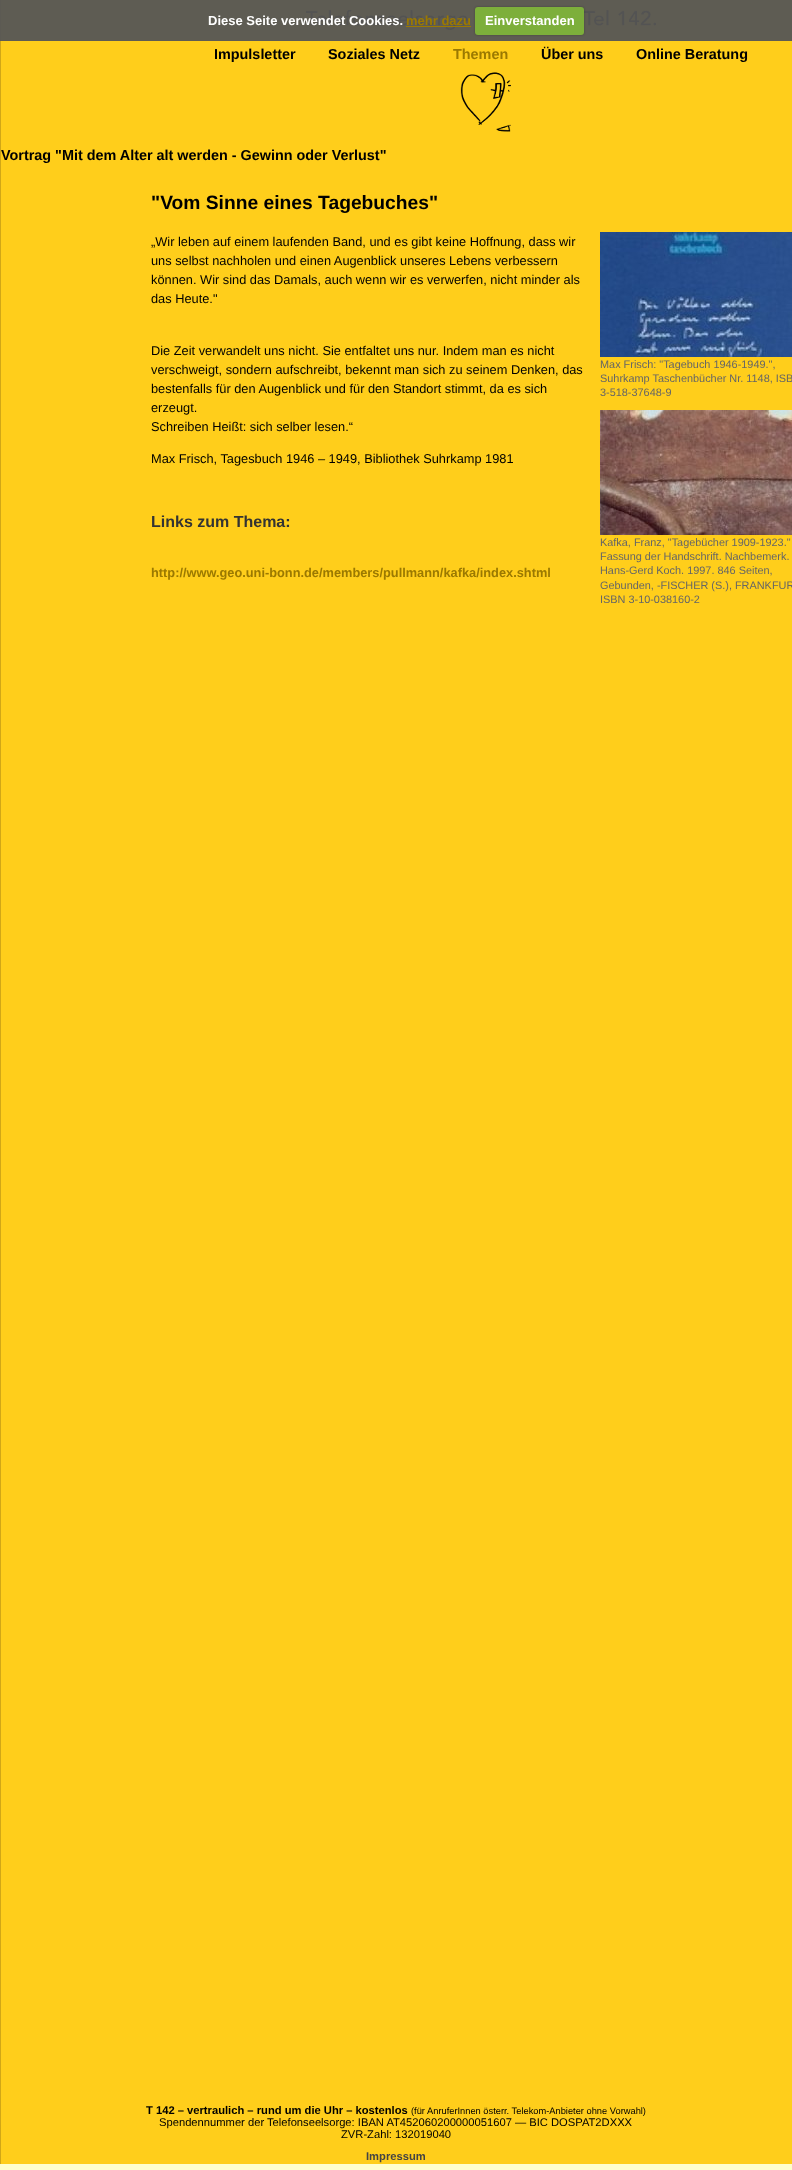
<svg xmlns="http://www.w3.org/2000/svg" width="792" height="2170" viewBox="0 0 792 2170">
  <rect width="100%" height="100%" fill="#ffc"/>
  <path d="M1 0h791v41H1z" fill="#5e5c53"/>
  <image x="306" y="10" width="350" height="20" href="img/1.png"/>
  <path d="M406 26h65v1H406z" fill="#9b7901"/>
  <rect x="475" y="7" width="109" height="28" rx="3" fill="#00000040" filter="blur(1px)"/>
  <rect x="475" y="7" width="109" height="28" rx="3" fill="#7daf3b"/>
  <path d="M1 41h791v2123H1z" fill="#ffce1b"/>
  <path d="M0 41h1v2123H0z" fill="#d1a717"/>
  <path d="M0 0h1v41H0z" fill="#5c5a53"/>
  <image x="460" y="72" width="51" height="60" href="img/2.png"/>
  <image x="600" y="232" width="192" height="125" href="img/3.png"/>
  <image x="600" y="410" width="192" height="125" href="img/4.png"/>
  <text x="208" y="25" font-family="Liberation Sans" font-size="13" font-weight="bold" fill="#fff">Diese Seite verwendet Cookies.</text>
  <text x="406" y="25" font-family="Liberation Sans" font-size="13" font-weight="bold" fill="#9b7901">mehr dazu</text>
  <text x="485" y="25" font-family="Liberation Sans" font-size="13" font-weight="bold" fill="#fff">Einverstanden</text>
  <g font-family="Liberation Sans" font-size="14.4" font-weight="bold" fill="#000">
    <text x="214" y="59">Impulsletter</text>
    <text x="328" y="59">Soziales Netz</text>
  </g>
  <text x="453" y="59" font-family="Liberation Sans" font-size="14.4" font-weight="bold" fill="#9b7901">Themen</text>
  <g font-family="Liberation Sans" font-size="14.4" font-weight="bold" fill="#000">
    <text x="541" y="59">Über uns</text>
    <text x="636" y="59">Online Beratung</text>
    <text x="1" y="160">Vortrag "Mit dem Alter alt werden - Gewinn oder Verlust"</text>
  </g>
  <text x="151" y="209" font-family="Liberation Sans" font-size="19.25" font-weight="bold" fill="#000">"Vom Sinne eines Tagebuches"</text>
  <g font-family="Liberation Sans" font-size="12.8" fill="#000">
    <text x="151" y="246">„Wir leben auf einem laufenden Band, und es gibt keine Hoffnung, dass wir</text>
    <text x="151" y="265">uns selbst nachholen und einen Augenblick unseres Lebens verbessern</text>
    <text x="151" y="284">können. Wir sind das Damals, auch wenn wir es verwerfen, nicht minder als</text>
    <text x="151" y="303">das Heute."</text>
    <text x="151" y="355">Die Zeit verwandelt uns nicht. Sie entfaltet uns nur. Indem man es nicht</text>
    <text x="151" y="374">verschweigt, sondern aufschreibt, bekennt man sich zu seinem Denken, das</text>
    <text x="151" y="393">bestenfalls für den Augenblick und für den Standort stimmt, da es sich</text>
    <text x="151" y="412">erzeugt.</text>
    <text x="151" y="431">Schreiben Heißt: sich selber lesen.“</text>
    <text x="151" y="463">Max Frisch, Tagesbuch 1946 – 1949, Bibliothek Suhrkamp 1981</text>
  </g>
  <text x="151" y="527" font-family="Liberation Sans" font-size="16" font-weight="bold" fill="#333">Links zum Thema:</text>
  <text x="151" y="577" font-family="Liberation Sans" font-size="12.8" font-weight="bold" fill="#9b7901">http://www.geo.uni-bonn.de/members/pullmann/kafka/index.shtml</text>
  <g font-family="Liberation Sans" font-size="10.9" fill="#666">
    <text x="600" y="368">Max Frisch: "Tagebuch 1946-1949.",</text>
    <text x="600" y="382">Suhrkamp Taschenbücher Nr. 1148, ISB</text>
    <text x="600" y="396">3-518-37648-9</text>
    <text x="600" y="546">Kafka, Franz, "Tagebücher 1909-1923."</text>
    <text x="600" y="560">Fassung der Handschrift. Nachbemerk.</text>
    <text x="600" y="574">Hans-Gerd Koch. 1997. 846 Seiten,</text>
    <text x="600" y="589">Gebunden, -FISCHER (S.), FRANKFUR</text>
    <text x="600" y="603">ISBN 3-10-038160-2</text>
  </g>
  <text x="146" y="2114" font-family="Liberation Sans" font-size="11.2" font-weight="bold" fill="#000">T 142 – vertraulich – rund um die Uhr – kostenlos</text>
  <text x="411" y="2114" font-family="Liberation Sans" font-size="9.3" fill="#000">(für AnruferInnen österr. Telekom-Anbieter ohne Vorwahl)</text>
  <g font-family="Liberation Sans" font-size="11.2" fill="#000">
    <text x="159" y="2126">Spendennummer der Telefonseelsorge: IBAN AT452060200000051607 — BIC DOSPAT2DXXX</text>
    <text x="341" y="2138">ZVR-Zahl: 132019040</text>
  </g>
  <text x="366" y="2160" font-family="Liberation Sans" font-size="11.2" font-weight="bold" fill="#444">Impressum</text>
</svg>
